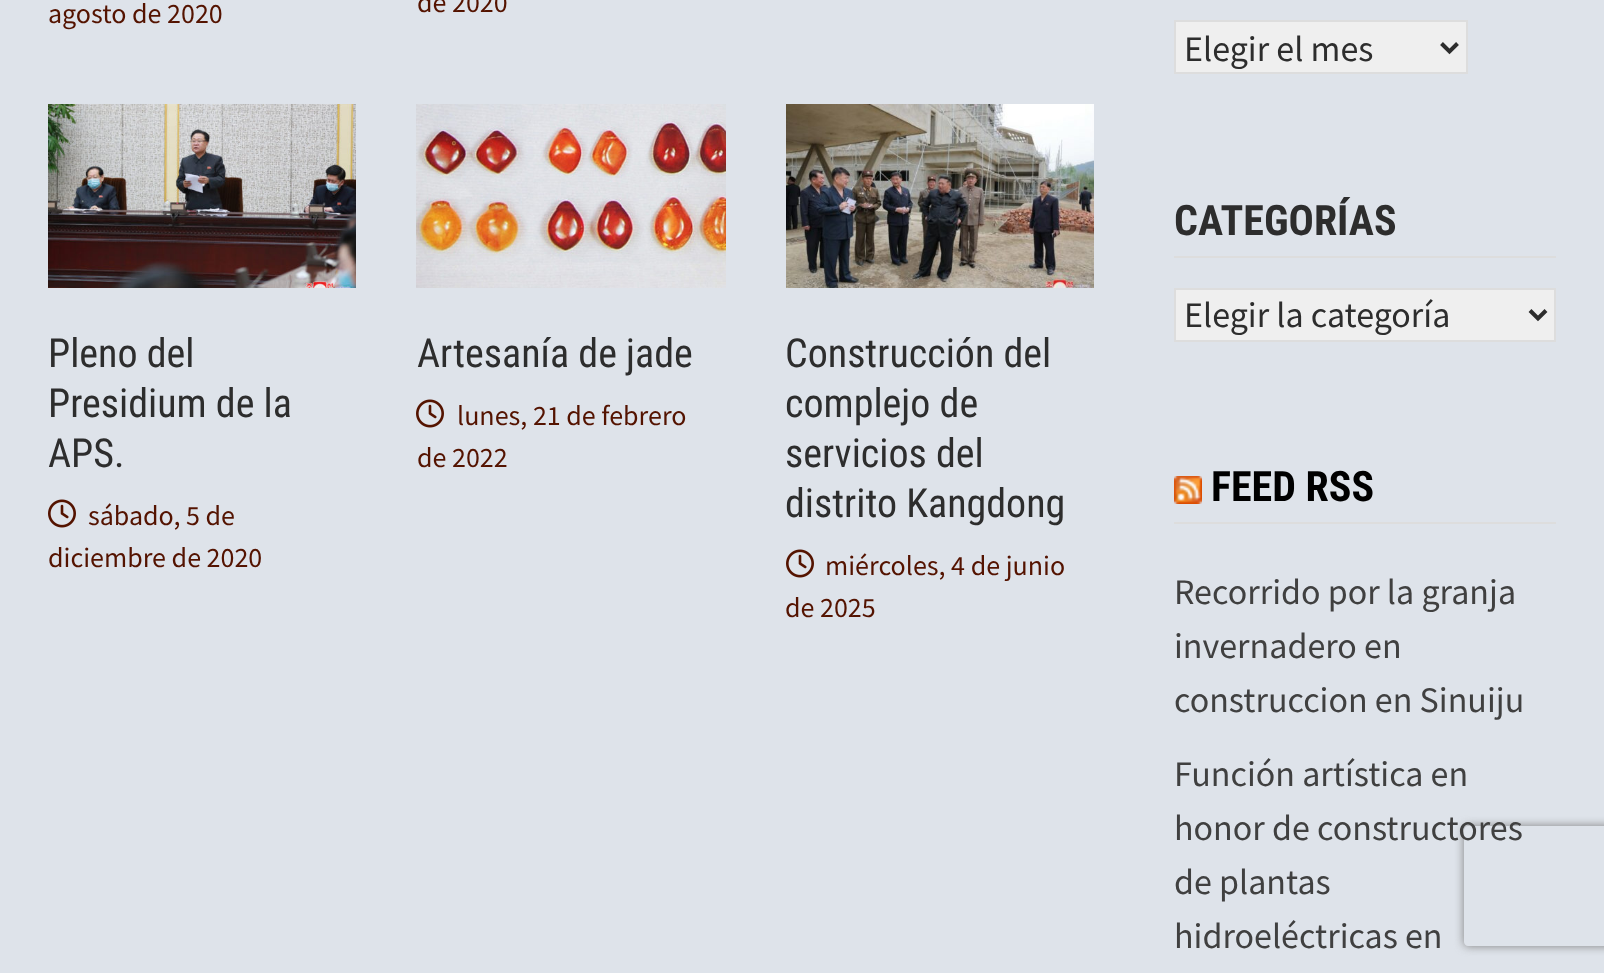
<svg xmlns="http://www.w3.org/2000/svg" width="1604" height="973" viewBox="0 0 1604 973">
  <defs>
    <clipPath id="clip1"><path d="M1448 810H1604V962H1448ZM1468 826H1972C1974 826 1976 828 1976 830V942C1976 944 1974 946 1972 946H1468C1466 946 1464 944 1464 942V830C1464 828 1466 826 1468 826Z" clip-rule="evenodd"/></clipPath>
  </defs>
  <rect width="100%" height="100%" fill="#dee3ea"/>
  <image x="48" y="104" width="308" height="184" href="img/1.png"/>
  <image x="48" y="499" width="28" height="29" href="img/2.png"/>
  <image x="416" y="104" width="310" height="184" href="img/3.png"/>
  <image x="416" y="399" width="28" height="29" href="img/2.png"/>
  <image x="786" y="104" width="308" height="184" href="img/4.png"/>
  <image x="786" y="549" width="28" height="29" href="img/2.png"/>
  <path d="M1175 21h292v52H1175z" fill="#efefef" stroke="#ddd" stroke-width="2"/>
  <path d="M1441.5 43.5L1449.5 51.5L1457.5 43.5" fill="none" stroke="#2d2d2d" stroke-width="4"/>
  <path d="M1174 256h382v2H1174z" fill="#ddd"/>
  <path d="M1175 289h380v52H1175z" fill="#efefef" stroke="#ddd" stroke-width="2"/>
  <path d="M1530 310.5L1538 318.5L1546 310.5" fill="none" stroke="#2d2d2d" stroke-width="4"/>
  <path d="M1174 522h382v2H1174z" fill="#ddd"/>
  <image x="1174" y="476" width="28" height="28" href="img/5.png"/>
  <g clip-path="url(#clip1)">
    <rect x="1464" y="826" width="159" height="120" rx="4" fill="#808080" filter="blur(5px)"/>
  </g>
  <g font-family="Source Sans Pro" font-size="28" fill="#541300">
    <text x="48" y="23">agosto de 2020</text>
    <text x="417" y="12">de 2020</text>
  </g>
  <g font-family="Roboto Condensed" font-size="40" fill="#2d2d2d">
    <text x="48" y="367">Pleno del</text>
    <text x="48" y="417">Presidium de la</text>
    <text x="48" y="467">APS.</text>
  </g>
  <g font-family="Source Sans Pro" font-size="28" fill="#541300">
    <text x="88" y="525">sábado, 5 de</text>
    <text x="48" y="567">diciembre de 2020</text>
  </g>
  <text x="417" y="367" font-family="Roboto Condensed" font-size="40" fill="#2d2d2d">Artesanía de jade</text>
  <g font-family="Source Sans Pro" font-size="28" fill="#541300">
    <text x="457" y="425">lunes, 21 de febrero</text>
    <text x="417" y="467">de 2022</text>
  </g>
  <g font-family="Roboto Condensed" font-size="40" fill="#2d2d2d">
    <text x="785" y="367">Construcción del</text>
    <text x="785" y="417">complejo de</text>
    <text x="785" y="467">servicios del</text>
    <text x="785" y="517">distrito Kangdong</text>
  </g>
  <g font-family="Source Sans Pro" font-size="28" fill="#541300">
    <text x="825" y="575">miércoles, 4 de junio</text>
    <text x="785" y="617">de 2025</text>
  </g>
  <text x="1184" y="61" font-family="Source Sans Pro" font-size="36" fill="#2d2d2d">Elegir el mes</text>
  <text x="1174" y="235" font-family="Roboto Condensed" font-size="42" font-weight="bold" fill="#2d2d2d">CATEGORÍAS</text>
  <text x="1184" y="327" font-family="Source Sans Pro" font-size="36" fill="#2d2d2d">Elegir la categoría</text>
  <text x="1211" y="501" font-family="Roboto Condensed" font-size="42" font-weight="bold" fill="#000">FEED RSS</text>
  <g font-family="Source Sans Pro" font-size="36" fill="#404040">
    <text x="1174" y="604">Recorrido por la granja</text>
    <text x="1174" y="658">invernadero en</text>
    <text x="1174" y="712">construccion en Sinuiju</text>
    <text x="1174" y="786">Función artística en</text>
    <text x="1174" y="840">honor de constructores</text>
    <text x="1174" y="894">de plantas</text>
    <text x="1174" y="948">hidroeléctricas en</text>
  </g>
</svg>
